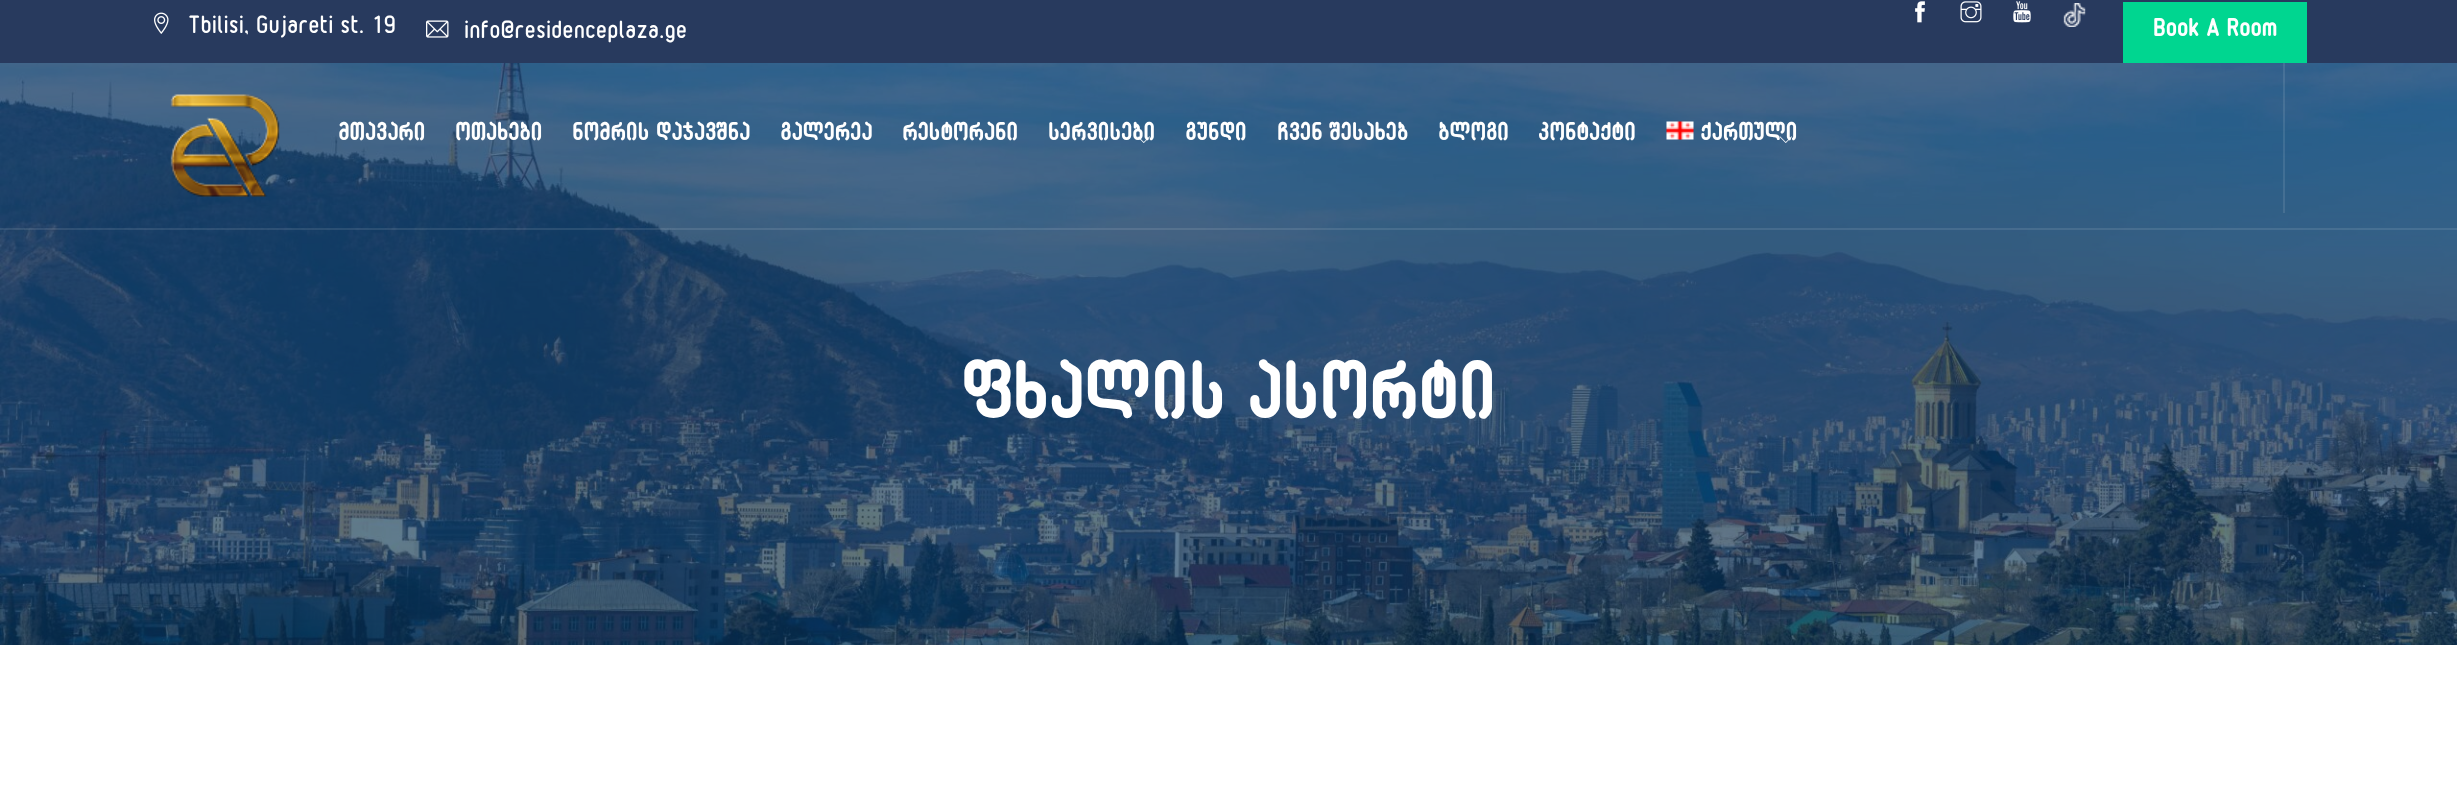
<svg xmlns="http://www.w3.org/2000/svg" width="2457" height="788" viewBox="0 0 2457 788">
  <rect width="100%" height="100%" fill="#fff"/>
  <path d="M0 0h2457v63H0z" fill="#283a5e"/>
  <image x="154" y="12" width="15" height="22" href="img/1.png"/>
  <image x="426" y="20" width="23" height="18" href="img/2.png"/>
  <image x="1915" y="1" width="10" height="22" href="img/3.png"/>
  <image x="1960" y="1" width="22" height="22" href="img/4.png"/>
  <image x="2013" y="1" width="18" height="22" href="img/5.png"/>
  <image x="2063" y="3" width="23" height="24" href="img/6.png"/>
  <path d="M2123 2h184v61H2123z" fill="#00d690"/>
  <image x="0" y="63" width="2457" height="582" href="img/11.png"/>
  <path d="M0 228h2457v2H0z" fill="#ffffff1a"/>
  <image x="170" y="94" width="110" height="103" href="img/7.png"/>
  <image x="1666" y="121" width="28" height="19" href="img/9.png"/>
  <path d="M2283 63h2v150H2283z" fill="#ffffff1a"/>
  <g font-family="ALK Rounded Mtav" font-size="22.5" font-weight="500" fill="#fff">
    <text x="188" y="33">Tbilisi, Gujareti st. 19</text>
    <text x="464" y="38">info@residenceplaza.ge</text>
  </g>
  <g font-family="ALK Rounded Mtav" font-size="22.5" font-weight="bold" fill="#fff">
    <text x="2153" y="36">Book A Room</text>
    <text x="338" y="140">მთავარი</text>
    <text x="455" y="140">ოთახები</text>
    <text x="572" y="140">ნომრის დაჯავშნა</text>
    <text x="780" y="140">გალერეა</text>
    <text x="902" y="140">რესტორანი</text>
    <text x="1048" y="140">სერვისები</text>
  </g>
  <image x="1137" y="136" width="13" height="7" href="img/8.png"/>
  <g font-family="ALK Rounded Mtav" font-size="22.5" font-weight="bold" fill="#fff">
    <text x="1185" y="140">გუნდი</text>
    <text x="1277" y="140">ჩვენ შესახებ</text>
    <text x="1438" y="140">ბლოგი</text>
    <text x="1538" y="140">კონტაქტი</text>
    <text x="1700" y="140">ქართული</text>
  </g>
  <image x="1779" y="136" width="13" height="7" href="img/10.png"/>
  <text x="961" y="418" font-family="ALK Rounded Mtav" font-size="72" font-weight="bold" fill="#fff">ფხალის ასორტი</text>
</svg>
